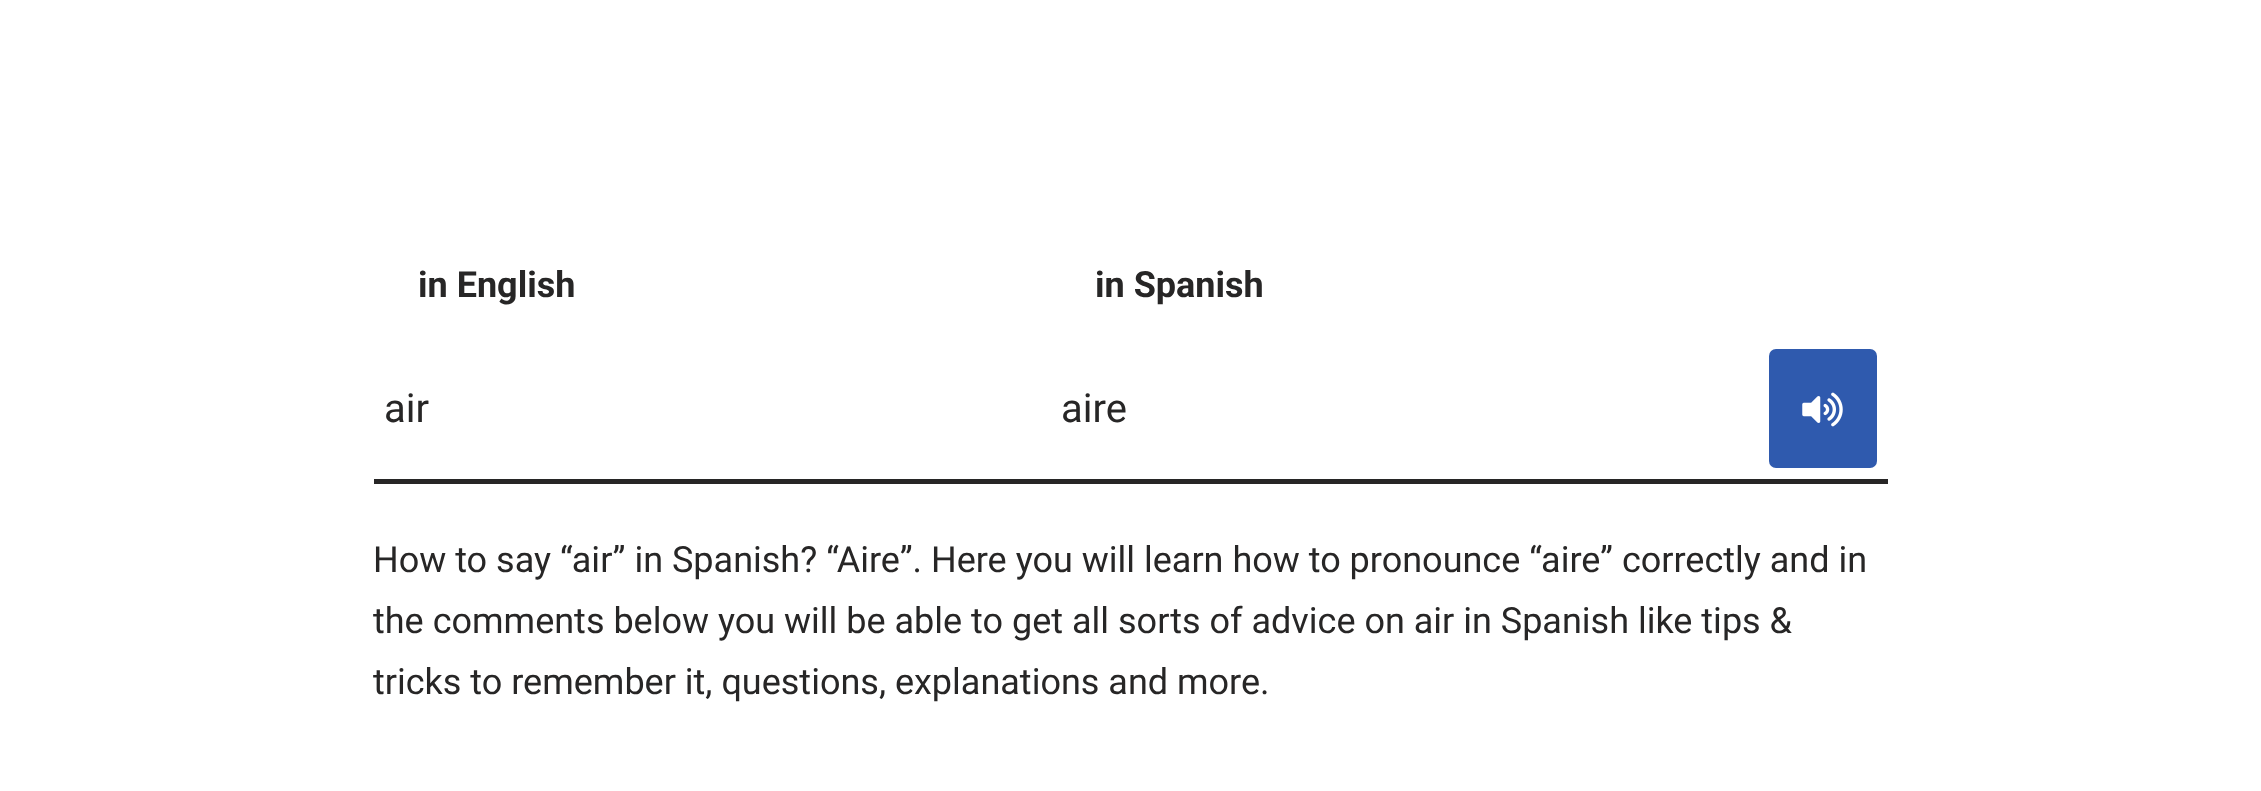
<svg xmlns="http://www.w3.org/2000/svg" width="2261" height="791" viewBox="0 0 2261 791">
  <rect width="100%" height="100%" fill="#fff"/>
  <path d="M374 479h1514v5H374z" fill="#272626"/>
  <rect x="1769" y="349" width="108" height="119" rx="7" fill="#2f5aae"/>
  <image x="1802" y="392" width="41" height="35" href="img/1.png"/>
  <g font-family="Roboto" font-size="36" font-weight="bold" fill="#272626">
    <text x="418" y="297">in English</text>
    <text x="1095" y="297">in Spanish</text>
  </g>
  <g font-family="Roboto" font-size="40" fill="#272626">
    <text x="384" y="422">air</text>
    <text x="1061" y="422">aire</text>
  </g>
  <g font-family="Roboto" font-size="36" fill="#272626">
    <text x="373" y="572">How to say “air” in Spanish? “Aire”. Here you will learn how to pronounce “aire” correctly and in</text>
    <text x="373" y="633">the comments below you will be able to get all sorts of advice on air in Spanish like tips &amp;</text>
    <text x="373" y="694">tricks to remember it, questions, explanations and more.</text>
  </g>
</svg>
